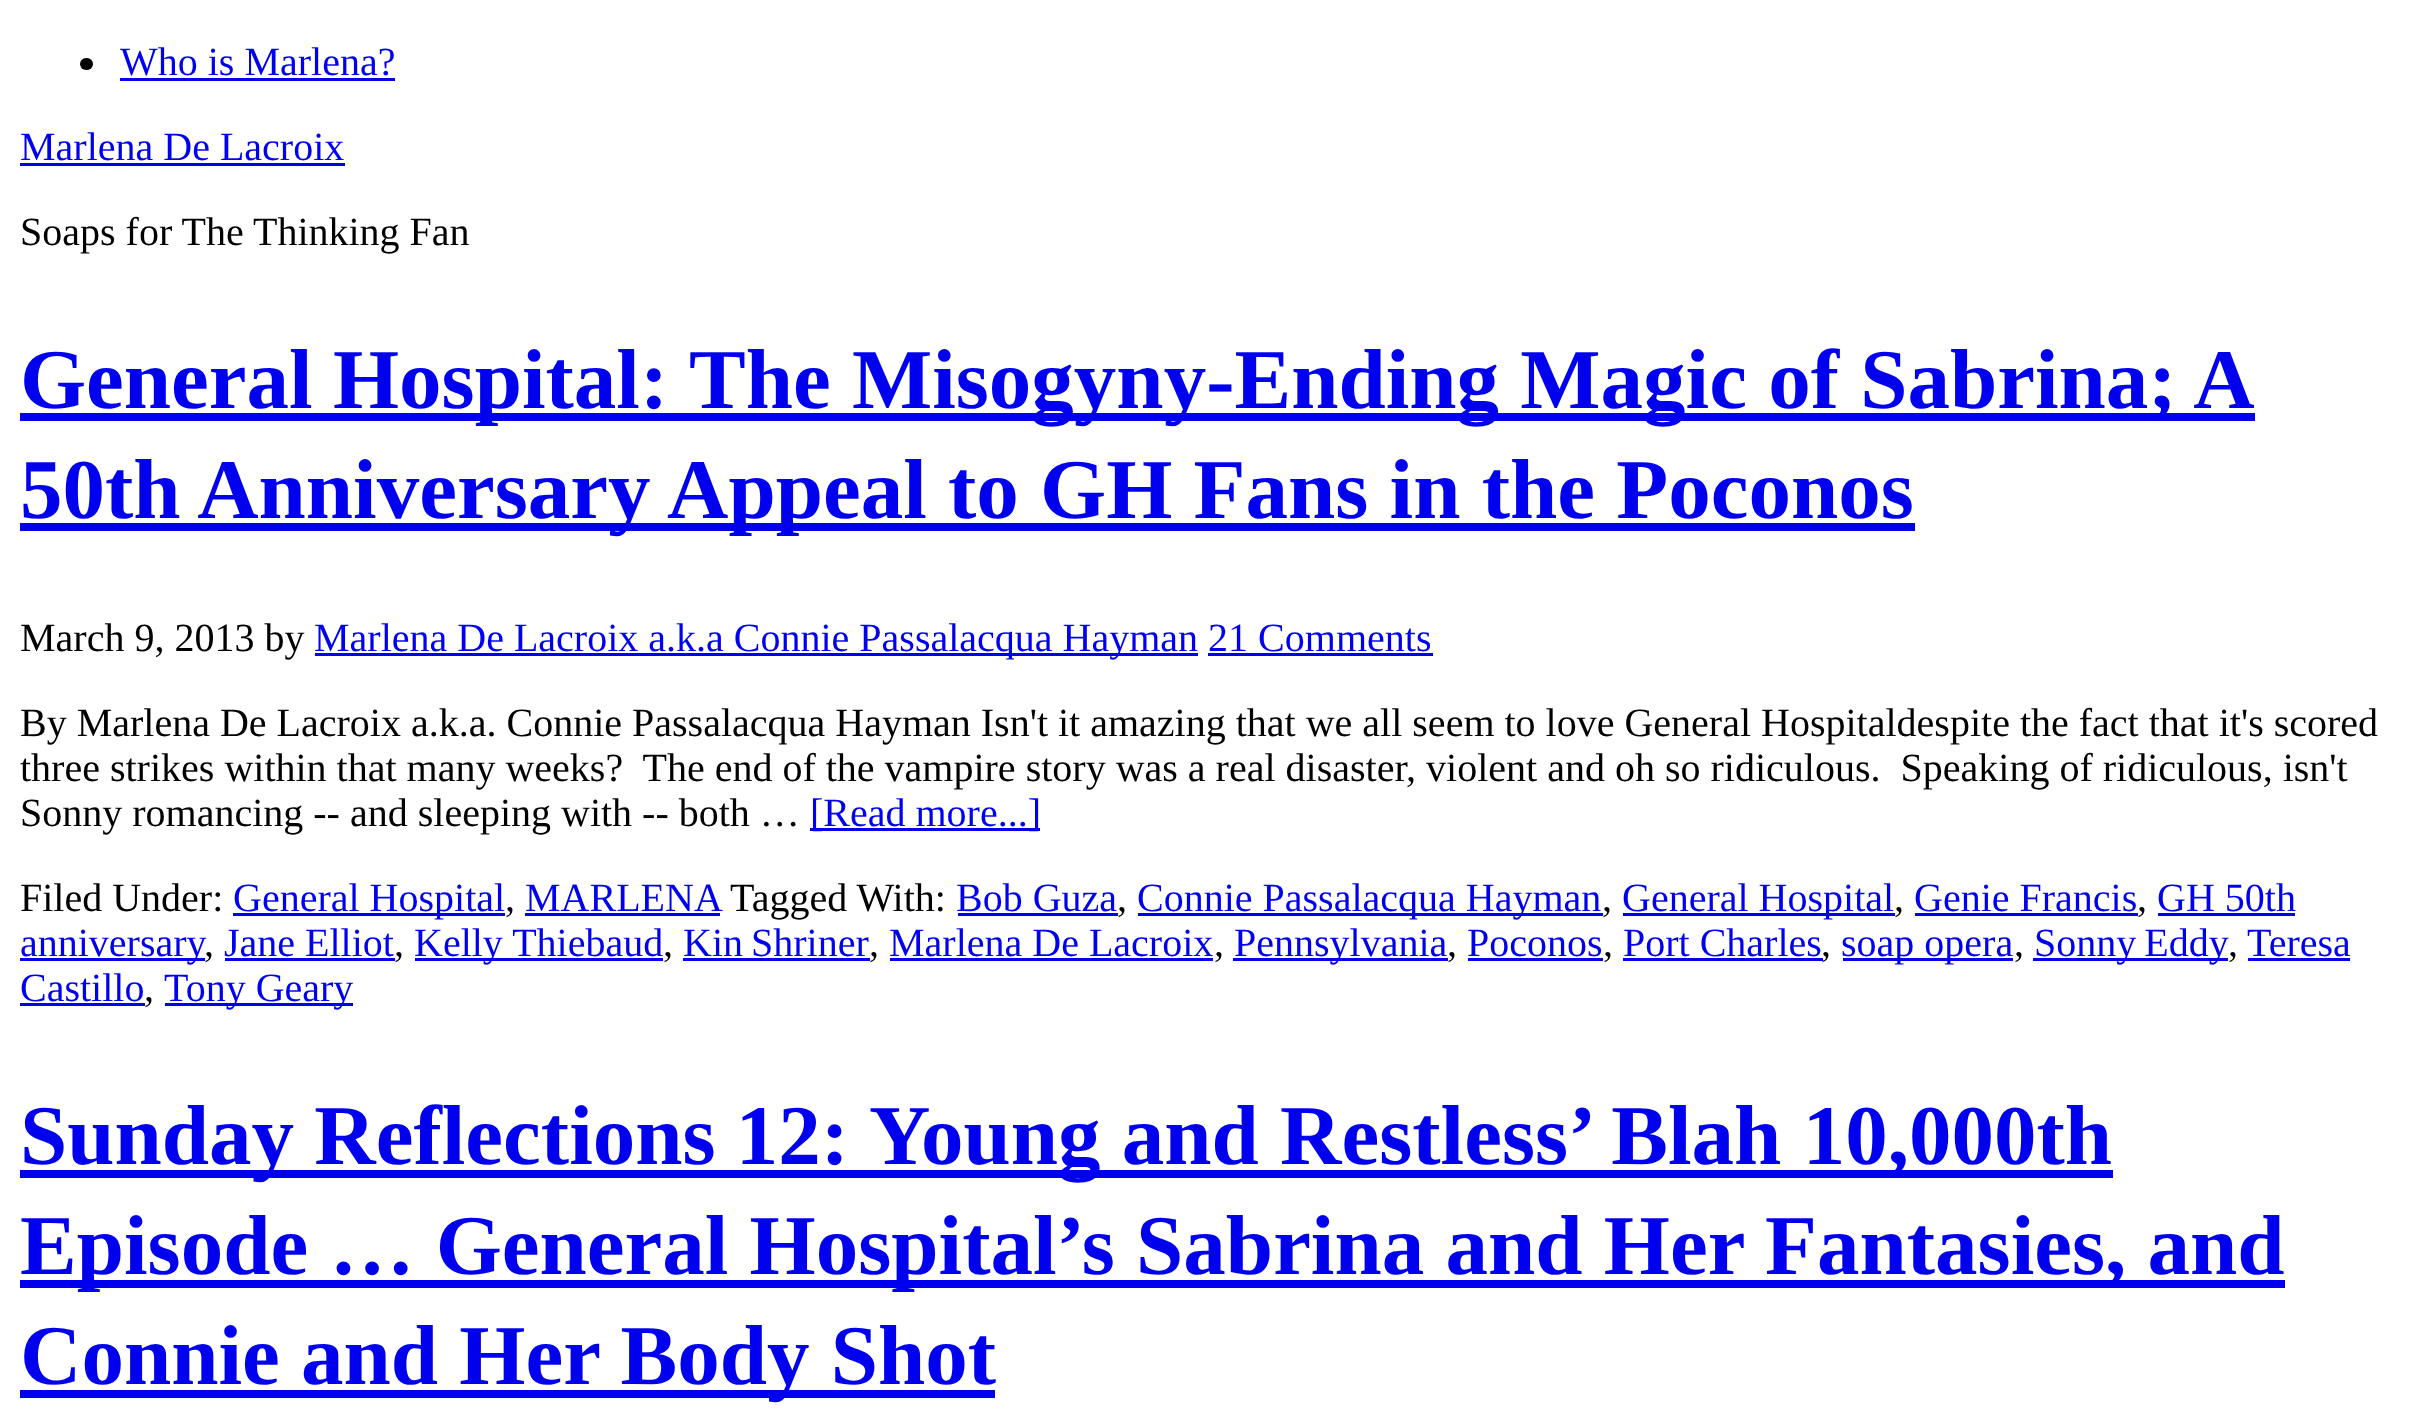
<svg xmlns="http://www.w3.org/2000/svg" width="2419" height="1424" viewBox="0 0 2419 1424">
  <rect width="100%" height="100%" fill="#fff"/>
  <rect x="80" y="58" width="13" height="12" rx="6" fill="#000"/>
  <path d="M120 78h275v3H120z" fill="#00e"/>
  <path d="M20 163h325v3H20z" fill="#00e"/>
  <path d="M20 413h2235v8H20z" fill="#00e"/>
  <path d="M20 523h1895v8H20z" fill="#00e"/>
  <path d="M315 653h883v3H315z" fill="#00e"/>
  <path d="M1208 653h225v3H1208z" fill="#00e"/>
  <path d="M810 828h230v3H810z" fill="#00e"/>
  <path d="M233 913h272v3H233z" fill="#00e"/>
  <path d="M525 913h195v3H525z" fill="#00e"/>
  <path d="M958 913h160v3H958z" fill="#00e"/>
  <path d="M1138 913h465v3H1138z" fill="#00e"/>
  <path d="M1623 913h272v3H1623z" fill="#00e"/>
  <path d="M1915 913h223v3H1915z" fill="#00e"/>
  <path d="M2158 913h137v3H2158z" fill="#00e"/>
  <path d="M20 958h185v3H20z" fill="#00e"/>
  <path d="M225 958h170v3H225z" fill="#00e"/>
  <path d="M415 958h248v3H415z" fill="#00e"/>
  <path d="M683 958h187v3H683z" fill="#00e"/>
  <path d="M890 958h323v3H890z" fill="#00e"/>
  <path d="M1233 958h215v3H1233z" fill="#00e"/>
  <path d="M1468 958h135v3H1468z" fill="#00e"/>
  <path d="M1623 958h200v3H1623z" fill="#00e"/>
  <path d="M1843 958h170v3H1843z" fill="#00e"/>
  <path d="M2033 958h195v3H2033z" fill="#00e"/>
  <path d="M2248 958h102v3H2248z" fill="#00e"/>
  <path d="M20 1003h125v3H20z" fill="#00e"/>
  <path d="M165 1003h188v3H165z" fill="#00e"/>
  <path d="M20 1170h2093v8H20z" fill="#00e"/>
  <path d="M20 1280h2265v8H20z" fill="#00e"/>
  <path d="M20 1390h975v8H20z" fill="#00e"/>
  <g font-family="Liberation Serif" font-size="40" fill="#00e">
    <text x="120" y="75">Who is Marlena?</text>
    <text x="20" y="160">Marlena De Lacroix</text>
  </g>
  <text x="20" y="245" font-family="Liberation Serif" font-size="40" fill="#000">Soaps for The Thinking Fan</text>
  <g font-family="Liberation Serif" font-size="85" font-weight="bold" fill="#00e">
    <text x="20" y="408" word-spacing="-1">General Hospital:</text>
    <text x="689" y="408">The Misogyny-Ending Magic of Sabrina; A</text>
    <text x="20" y="518">50th Anniversary Appeal to GH Fans in the Poconos</text>
  </g>
  <text x="20" y="651" font-family="Liberation Serif" font-size="40" fill="#000">March 9, 2013 by</text>
  <text x="314" y="651" font-family="Liberation Serif" font-size="40" fill="#00e">Marlena De Lacroix a.k.a Connie Passalacqua Hayman 21 Comments</text>
  <g font-family="Liberation Serif" font-size="40" fill="#000">
    <text x="20" y="736">By Marlena De Lacroix a.k.a. Connie Passalacqua Hayman Isn't it amazing that we all seem to love General Hospitaldespite the fact that it's scored</text>
    <text x="20" y="781" xml:space="preserve">three strikes within that many weeks?  The end of the vampire story was a real disaster, violent and oh so ridiculous.  Speaking of ridiculous, isn't</text>
    <text x="20" y="826">Sonny romancing -- and sleeping with -- both …</text>
  </g>
  <text x="810" y="826" font-family="Liberation Serif" font-size="40" fill="#00e">[Read more...]</text>
  <text x="20" y="911" font-family="Liberation Serif" font-size="40" fill="#000">Filed Under:</text>
  <text x="233" y="911" font-family="Liberation Serif" font-size="40" fill="#00e">General Hospital</text>
  <text x="505" y="911" font-family="Liberation Serif" font-size="40" fill="#000">,</text>
  <text x="525" y="911" font-family="Liberation Serif" font-size="40" fill="#00e">MARLENA</text>
  <text x="730" y="911" font-family="Liberation Serif" font-size="40" fill="#000">Tagged With:</text>
  <text x="956" y="911" font-family="Liberation Serif" font-size="40" fill="#00e">Bob Guza</text>
  <text x="1117" y="911" font-family="Liberation Serif" font-size="40" fill="#000">,</text>
  <text x="1137" y="911" font-family="Liberation Serif" font-size="40" fill="#00e">Connie Passalacqua Hayman</text>
  <text x="1602" y="911" font-family="Liberation Serif" font-size="40" fill="#000">,</text>
  <text x="1622" y="911" font-family="Liberation Serif" font-size="40" fill="#00e">General Hospital</text>
  <text x="1894" y="911" font-family="Liberation Serif" font-size="40" fill="#000">,</text>
  <text x="1914" y="911" font-family="Liberation Serif" font-size="40" fill="#00e">Genie Francis</text>
  <text x="2137" y="911" font-family="Liberation Serif" font-size="40" fill="#000">,</text>
  <g font-family="Liberation Serif" font-size="40" fill="#00e">
    <text x="2157" y="911">GH 50th</text>
    <text x="20" y="956">anniversary</text>
  </g>
  <text x="204" y="956" font-family="Liberation Serif" font-size="40" fill="#000">,</text>
  <text x="224" y="956" font-family="Liberation Serif" font-size="40" fill="#00e">Jane Elliot</text>
  <text x="394" y="956" font-family="Liberation Serif" font-size="40" fill="#000">,</text>
  <text x="414" y="956" font-family="Liberation Serif" font-size="40" fill="#00e">Kelly Thiebaud</text>
  <text x="663" y="956" font-family="Liberation Serif" font-size="40" fill="#000">,</text>
  <text x="683" y="956" word-spacing="-2" font-family="Liberation Serif" font-size="40" fill="#00e">Kin Shriner</text>
  <text x="869" y="956" font-family="Liberation Serif" font-size="40" fill="#000">,</text>
  <text x="889" y="956" font-family="Liberation Serif" font-size="40" fill="#00e">Marlena De Lacroix</text>
  <text x="1214" y="956" font-family="Liberation Serif" font-size="40" fill="#000">,</text>
  <text x="1234" y="956" font-family="Liberation Serif" font-size="40" fill="#00e">Pennsylvania</text>
  <text x="1447" y="956" font-family="Liberation Serif" font-size="40" fill="#000">,</text>
  <text x="1467" y="956" font-family="Liberation Serif" font-size="40" fill="#00e">Poconos</text>
  <text x="1603" y="956" font-family="Liberation Serif" font-size="40" fill="#000">,</text>
  <text x="1623" y="956" font-family="Liberation Serif" font-size="40" fill="#00e">Port Charles</text>
  <text x="1821" y="956" font-family="Liberation Serif" font-size="40" fill="#000">,</text>
  <text x="1841" y="956" font-family="Liberation Serif" font-size="40" fill="#00e">soap opera</text>
  <text x="2014" y="956" font-family="Liberation Serif" font-size="40" fill="#000">,</text>
  <text x="2034" y="956" word-spacing="-2" font-family="Liberation Serif" font-size="40" fill="#00e">Sonny Eddy</text>
  <text x="2228" y="956" font-family="Liberation Serif" font-size="40" fill="#000">,</text>
  <g font-family="Liberation Serif" font-size="40" fill="#00e">
    <text x="2247" y="956">Teresa</text>
    <text x="20" y="1001">Castillo</text>
  </g>
  <text x="144" y="1001" font-family="Liberation Serif" font-size="40" fill="#000">,</text>
  <text x="164" y="1001" font-family="Liberation Serif" font-size="40" fill="#00e">Tony Geary</text>
  <g font-family="Liberation Serif" font-size="85" font-weight="bold" fill="#00e">
    <text x="20" y="1164" word-spacing="-1">Sunday Reflections 12:</text>
    <text x="869" y="1164">Young and Restless’ Blah 10,000th</text>
    <text x="20" y="1274">Episode … General Hospital’s Sabrina and Her Fantasies, and</text>
    <text x="20" y="1384">Connie and Her Body Shot</text>
  </g>
</svg>
